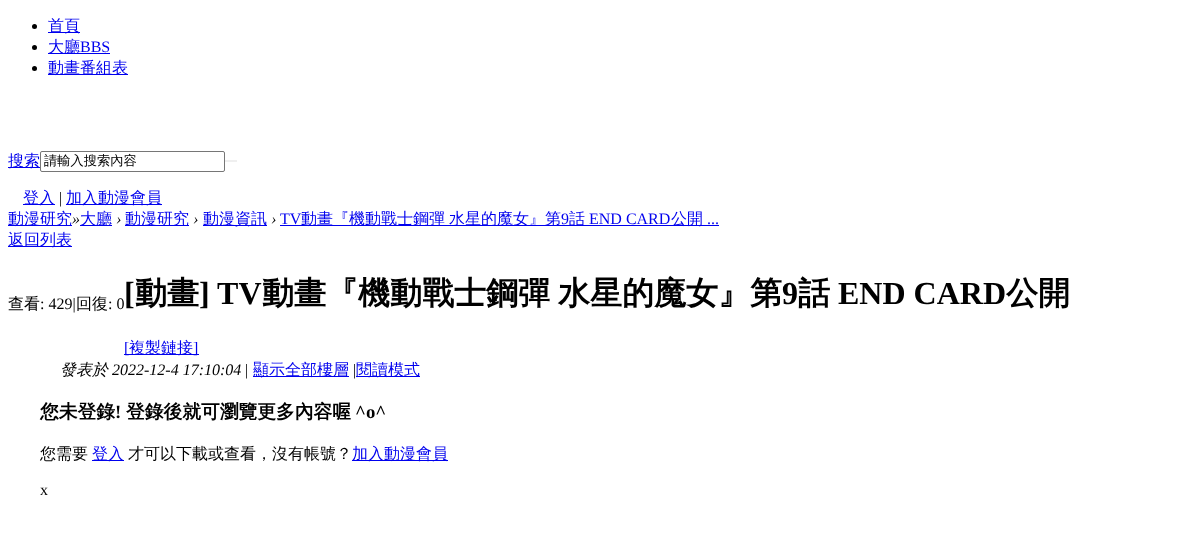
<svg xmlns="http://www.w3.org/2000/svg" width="1180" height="536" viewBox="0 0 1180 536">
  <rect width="100%" height="100%" fill="#fff"/>
  <circle cx="34.5" cy="26.5" r="2.5" fill="#000"/>
  <path d="M48 32h32v1H48z" fill="#00e"/>
  <circle cx="34.5" cy="47.5" r="2.5" fill="#000"/>
  <path d="M48 53h62v1H48z" fill="#00e"/>
  <circle cx="34.5" cy="68.5" r="2.5" fill="#000"/>
  <path d="M48 74h80v1H48z" fill="#00e"/>
  <path d="M8 167h32v1H8z" fill="#00e"/>
  <rect x="40.5" y="151.5" width="184" height="20" rx="1.5" fill="none" stroke="#767676"/>
  <path d="M225 160h12v2H225z" fill="#efefef"/>
  <path d="M23 204h32v1H23z" fill="#00e"/>
  <path d="M66 204h96v1H66z" fill="#00e"/>
  <path d="M8 225h64v1H8z" fill="#00e"/>
  <path d="M80 225h32v1H80z" fill="#00e"/>
  <path d="M125 225h64v1H125z" fill="#00e"/>
  <path d="M203 225h64v1H203z" fill="#00e"/>
  <path d="M280 225h439v1H280z" fill="#00e"/>
  <path d="M8 246h64v1H8z" fill="#00e"/>
  <path d="M124 354h75v1H124z" fill="#00e"/>
  <path d="M253 376h96v1H253z" fill="#00e"/>
  <path d="M356 376h64v1H356z" fill="#00e"/>
  <path d="M92 460h32v1H92z" fill="#00e"/>
  <path d="M352 460h96v1H352z" fill="#00e"/>
  <g font-family="WenQuanYi Zen Hei" font-size="16" font-weight="500" fill="#00e">
    <text x="48" y="31">首頁</text>
    <text x="48" y="52">大廳</text>
  </g>
  <text x="80" y="52" font-family="Liberation Serif" font-size="16" fill="#00e">BBS</text>
  <g font-family="WenQuanYi Zen Hei" font-size="16" font-weight="500" fill="#00e">
    <text x="48" y="73">動畫番組表</text>
    <text x="8" y="166">搜索</text>
  </g>
  <text x="44" y="165" font-family="WenQuanYi Zen Hei" font-size="13.25" font-weight="500" fill="#000">請輸入搜索內容</text>
  <text x="23" y="203" font-family="WenQuanYi Zen Hei" font-size="16" font-weight="500" fill="#00e">登入</text>
  <text x="59" y="203" font-family="Liberation Serif" font-size="16" fill="#000">|</text>
  <g font-family="WenQuanYi Zen Hei" font-size="16" font-weight="500" fill="#00e">
    <text x="66" y="203">加入動漫會員</text>
    <text x="8" y="224">動漫研究</text>
  </g>
  <text x="72" y="224" font-family="Liberation Serif" font-size="16" font-style="italic" fill="#000">»</text>
  <text x="80" y="224" font-family="WenQuanYi Zen Hei" font-size="16" font-weight="500" fill="#00e">大廳</text>
  <text x="116" y="224" font-family="Liberation Serif" font-size="16" font-style="italic" fill="#000">›</text>
  <text x="125" y="224" font-family="WenQuanYi Zen Hei" font-size="16" font-weight="500" fill="#00e">動漫研究</text>
  <text x="193" y="224" font-family="Liberation Serif" font-size="16" font-style="italic" fill="#000">›</text>
  <text x="203" y="224" font-family="WenQuanYi Zen Hei" font-size="16" font-weight="500" fill="#00e">動漫資訊</text>
  <text x="271" y="224" font-family="Liberation Serif" font-size="16" font-style="italic" fill="#000">›</text>
  <text x="280" y="224" font-family="Liberation Serif" font-size="16" fill="#00e">TV</text>
  <g font-family="WenQuanYi Zen Hei" font-size="16" font-weight="500" fill="#00e">
    <text x="301" y="224">動畫『機動戰士鋼彈</text>
    <text x="449" y="224">水星的魔女』第</text>
  </g>
  <text x="561" y="224" font-family="Liberation Serif" font-size="16" fill="#00e">9</text>
  <text x="569" y="224" font-family="WenQuanYi Zen Hei" font-size="16" font-weight="500" fill="#00e">話</text>
  <text x="589" y="224" font-family="Liberation Serif" font-size="16" fill="#00e">END CARD</text>
  <text x="671" y="224" font-family="WenQuanYi Zen Hei" font-size="16" font-weight="500" fill="#00e">公開</text>
  <text x="707" y="224" font-family="Liberation Serif" font-size="16" fill="#00e">...</text>
  <text x="8" y="245" font-family="WenQuanYi Zen Hei" font-size="16" font-weight="500" fill="#00e">返回列表</text>
  <text x="8" y="309" font-family="WenQuanYi Zen Hei" font-size="16" font-weight="500" fill="#000">查看</text>
  <text x="40" y="309" font-family="Liberation Serif" font-size="16" fill="#000">: 429|</text>
  <text x="76" y="309" font-family="WenQuanYi Zen Hei" font-size="16" font-weight="500" fill="#000">回復</text>
  <text x="108" y="309" font-family="Liberation Serif" font-size="16" fill="#000">: 0</text>
  <text x="124" y="304" font-family="Liberation Serif" font-size="32" font-weight="bold" fill="#000">[</text>
  <text x="135" y="304" font-family="WenQuanYi Zen Hei" font-size="32" font-weight="bold" fill="#000">動畫</text>
  <text x="199" y="304" font-family="Liberation Serif" font-size="32" font-weight="bold" fill="#000">] TV</text>
  <g font-family="WenQuanYi Zen Hei" font-size="32" font-weight="bold" fill="#000">
    <text x="262" y="304">動畫『機動戰士鋼彈</text>
    <text x="558" y="304">水星的魔女』第</text>
  </g>
  <text x="782" y="304" font-family="Liberation Serif" font-size="32" font-weight="bold" fill="#000">9</text>
  <text x="798" y="304" font-family="WenQuanYi Zen Hei" font-size="32" font-weight="bold" fill="#000">話</text>
  <text x="838" y="304" font-family="Liberation Serif" font-size="32" font-weight="bold" fill="#000">END CARD</text>
  <text x="1006" y="304" font-family="WenQuanYi Zen Hei" font-size="32" font-weight="bold" fill="#000">公開</text>
  <text x="124" y="353" font-family="Liberation Serif" font-size="16" fill="#00e">[</text>
  <text x="129" y="353" font-family="WenQuanYi Zen Hei" font-size="16" font-weight="500" fill="#00e">複製鏈接</text>
  <text x="193" y="353" font-family="Liberation Serif" font-size="16" fill="#00e">]</text>
  <text x="60" y="375" font-family="WenQuanYi Zen Hei" font-size="16" font-weight="500" font-style="italic" fill="#000">發表於</text>
  <text x="112" y="375" font-family="Liberation Serif" font-size="16" font-style="italic" fill="#000">2022-12-4 17:10:04</text>
  <text x="245" y="375" font-family="Liberation Serif" font-size="16" fill="#000">|</text>
  <text x="253" y="375" font-family="WenQuanYi Zen Hei" font-size="16" font-weight="500" fill="#00e">顯示全部樓層</text>
  <text x="353" y="375" font-family="Liberation Serif" font-size="16" fill="#000">|</text>
  <text x="356" y="375" font-family="WenQuanYi Zen Hei" font-size="16" font-weight="500" fill="#00e">閱讀模式</text>
  <text x="40" y="418" font-family="WenQuanYi Zen Hei" font-size="18.75" font-weight="bold" fill="#000">您未登錄</text>
  <text x="115" y="418" font-family="Liberation Serif" font-size="18.75" font-weight="bold" fill="#000">!</text>
  <text x="126" y="418" font-family="WenQuanYi Zen Hei" font-size="18.75" font-weight="bold" fill="#000">登錄後就可瀏覽更多內容喔</text>
  <text x="355" y="418" font-family="Liberation Serif" font-size="18.75" font-weight="bold" fill="#000">^o^</text>
  <text x="40" y="459" font-family="WenQuanYi Zen Hei" font-size="16" font-weight="500" fill="#000">您需要</text>
  <text x="92" y="459" font-family="WenQuanYi Zen Hei" font-size="16" font-weight="500" fill="#00e">登入</text>
  <text x="128" y="459" font-family="WenQuanYi Zen Hei" font-size="16" font-weight="500" fill="#000">才可以下載或查看，沒有帳號？</text>
  <text x="352" y="459" font-family="WenQuanYi Zen Hei" font-size="16" font-weight="500" fill="#00e">加入動漫會員</text>
  <text x="40" y="495" font-family="Liberation Serif" font-size="16" fill="#000">x</text>
</svg>
